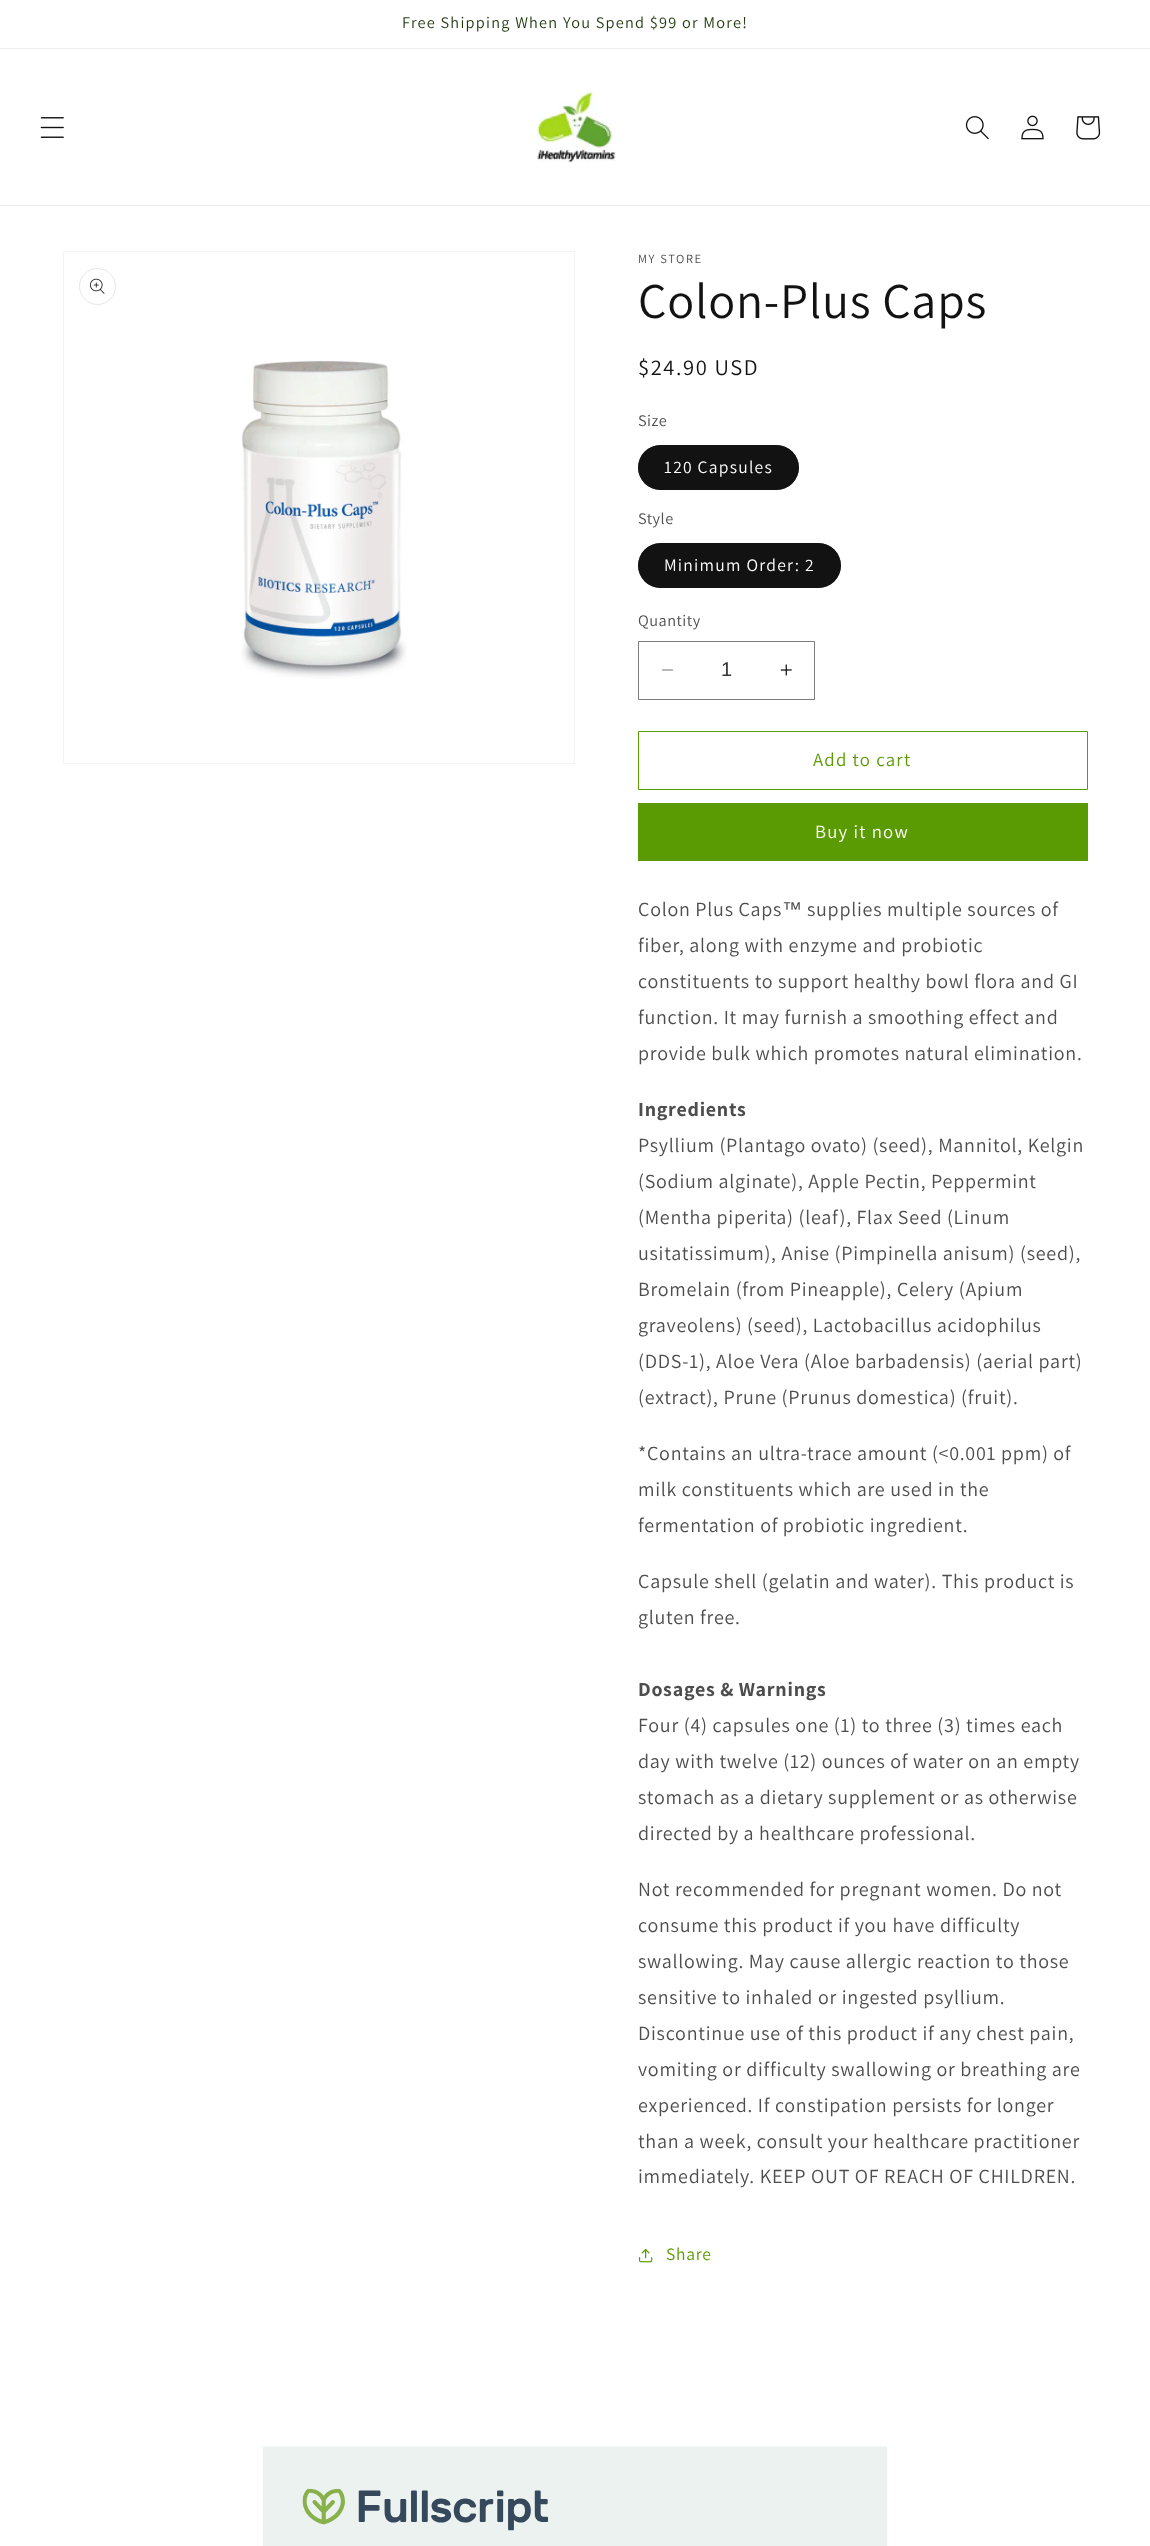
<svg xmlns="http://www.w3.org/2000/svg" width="1150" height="2546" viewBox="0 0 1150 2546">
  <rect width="100%" height="100%" fill="#fff"/>
  <path d="M0 48h1150v1H0z" fill="#edefec"/>
  <path d="M0 205h1150v1H0z" fill="#ececec"/>
  <image x="40" y="117" width="24" height="21" href="img/1.png"/>
  <image x="537" y="91" width="79" height="72" href="img/2.png"/>
  <image x="965" y="116" width="24" height="24" href="img/3.png"/>
  <image x="1021" y="115" width="23" height="25" href="img/4.png"/>
  <image x="1076" y="116" width="25" height="24" href="img/5.png"/>
  <path d="M63.5 251.5h511v512H63.5z" fill="none" stroke="#f3f3f3"/>
  <circle cx="97.5" cy="286.5" r="18" fill="none" stroke="#e7e7e7"/>
  <image x="90" y="278" width="15" height="16" href="img/6.png"/>
  <image x="241" y="360" width="166" height="319" href="img/7.png"/>
  <rect x="638" y="445" width="161" height="45" rx="22.5" fill="#121212"/>
  <rect x="638.5" y="445.5" width="160" height="44" rx="22" fill="none" stroke="#1212128c"/>
  <rect x="638" y="543" width="203" height="45" rx="22.5" fill="#121212"/>
  <rect x="638.5" y="543.5" width="202" height="44" rx="22" fill="none" stroke="#1212128c"/>
  <image x="662" y="669" width="11" height="2" href="img/8.png"/>
  <image x="780" y="664" width="12" height="12" href="img/9.png"/>
  <path d="M638.5 641.5h176v58H638.5z" fill="none" stroke="#7d7d7d"/>
  <path d="M638.5 731.5h449v58H638.5z" fill="none" stroke="#5a9b03"/>
  <path d="M638 803h450v58H638z" fill="#5a9b03"/>
  <image x="638" y="2248" width="15" height="15" href="img/10.png"/>
  <image x="263" y="2446" width="625" height="100" href="img/11.png"/>
  <text x="402" y="28" font-family="Assistant" font-size="16.25" letter-spacing="1.25" fill="#1f380d">Free Shipping When You Spend $99 or More!</text>
  <text x="638" y="263" font-family="Assistant" font-size="12.5" letter-spacing="1.6" fill="#4d4d4d">MY STORE</text>
  <text x="638" y="318" font-family="Assistant" font-size="50" letter-spacing="0.75" fill="#121212">Colon-Plus Caps</text>
  <text x="638" y="375" font-family="Assistant" font-size="22.5" letter-spacing="1.6" fill="#121212">$24.90 USD</text>
  <text x="638" y="426" font-family="Assistant" font-size="16.25" letter-spacing="0.5" fill="#4d4d4d">Size</text>
  <text x="664" y="473" font-family="Assistant" font-size="17.5" letter-spacing="1.25" fill="#fff">120 Capsules</text>
  <text x="638" y="524" font-family="Assistant" font-size="16.25" letter-spacing="0.5" fill="#4d4d4d">Style</text>
  <text x="664" y="571" font-family="Assistant" font-size="17.5" letter-spacing="1.25" fill="#fff">Minimum Order: 2</text>
  <text x="638" y="626" font-family="Assistant" font-size="16.25" letter-spacing="0.5" fill="#4d4d4d">Quantity</text>
  <text x="721" y="676" font-family="Liberation Sans" font-size="20" fill="#363636">1</text>
  <text x="813" y="766" font-family="Assistant" font-size="18.75" letter-spacing="1.25" fill="#5a9b03">Add to cart</text>
  <text x="815" y="838" font-family="Assistant" font-size="18.75" letter-spacing="1.25" fill="#fff">Buy it now</text>
  <text x="638" y="916" font-family="Assistant" font-size="20" letter-spacing="0.75" fill="#4d4d4d">Colon Plus Caps</text>
  <text x="782" y="916" font-family="Liberation Sans" font-size="20" letter-spacing="0.75" fill="#4d4d4d">™</text>
  <g font-family="Assistant" font-size="20" letter-spacing="0.75" fill="#4d4d4d">
    <text x="807" y="916">supplies multiple sources of</text>
    <text x="638" y="952">fiber, along with enzyme and probiotic</text>
    <text x="638" y="988">constituents to support healthy bowl flora and GI</text>
    <text x="638" y="1024">function. It may furnish a smoothing effect and</text>
    <text x="638" y="1060">provide bulk which promotes natural elimination.</text>
  </g>
  <text x="638" y="1116" font-family="Assistant" font-size="20" font-weight="bold" letter-spacing="0.75" fill="#4d4d4d">Ingredients</text>
  <g font-family="Assistant" font-size="20" letter-spacing="0.75" fill="#4d4d4d">
    <text x="638" y="1152">Psyllium (Plantago ovato) (seed), Mannitol, Kelgin</text>
    <text x="638" y="1188">(Sodium alginate), Apple Pectin, Peppermint</text>
    <text x="638" y="1224">(Mentha piperita) (leaf), Flax Seed (Linum</text>
    <text x="638" y="1260">usitatissimum), Anise (Pimpinella anisum) (seed),</text>
    <text x="638" y="1296">Bromelain (from Pineapple), Celery (Apium</text>
    <text x="638" y="1332">graveolens) (seed), Lactobacillus acidophilus</text>
    <text x="638" y="1368">(DDS-1), Aloe Vera (Aloe barbadensis) (aerial part)</text>
    <text x="638" y="1404">(extract), Prune (Prunus domestica) (fruit).</text>
    <text x="638" y="1460">*Contains an ultra-trace amount (&lt;0.001 ppm) of</text>
    <text x="638" y="1496">milk constituents which are used in the</text>
    <text x="638" y="1532">fermentation of probiotic ingredient.</text>
    <text x="638" y="1588">Capsule shell (gelatin and water). This product is</text>
    <text x="638" y="1624">gluten free.</text>
  </g>
  <text x="638" y="1696" font-family="Assistant" font-size="20" font-weight="bold" letter-spacing="0.75" fill="#4d4d4d">Dosages &amp; Warnings</text>
  <g font-family="Assistant" font-size="20" letter-spacing="0.75" fill="#4d4d4d">
    <text x="638" y="1732">Four (4) capsules one (1) to three (3) times each</text>
    <text x="638" y="1768">day with twelve (12) ounces of water on an empty</text>
    <text x="638" y="1804">stomach as a dietary supplement or as otherwise</text>
    <text x="638" y="1840">directed by a healthcare professional.</text>
    <text x="638" y="1896">Not recommended for pregnant women. Do not</text>
    <text x="638" y="1932">consume this product if you have difficulty</text>
    <text x="638" y="1968">swallowing. May cause allergic reaction to those</text>
    <text x="638" y="2004">sensitive to inhaled or ingested psyllium.</text>
    <text x="638" y="2040">Discontinue use of this product if any chest pain,</text>
    <text x="638" y="2076">vomiting or difficulty swallowing or breathing are</text>
    <text x="638" y="2112">experienced. If constipation persists for longer</text>
    <text x="638" y="2148">than a week, consult your healthcare practitioner</text>
    <text x="638" y="2183">immediately. KEEP OUT OF REACH OF CHILDREN.</text>
  </g>
  <text x="666" y="2260" font-family="Assistant" font-size="17.5" letter-spacing="0.75" fill="#5a9b03">Share</text>
</svg>
